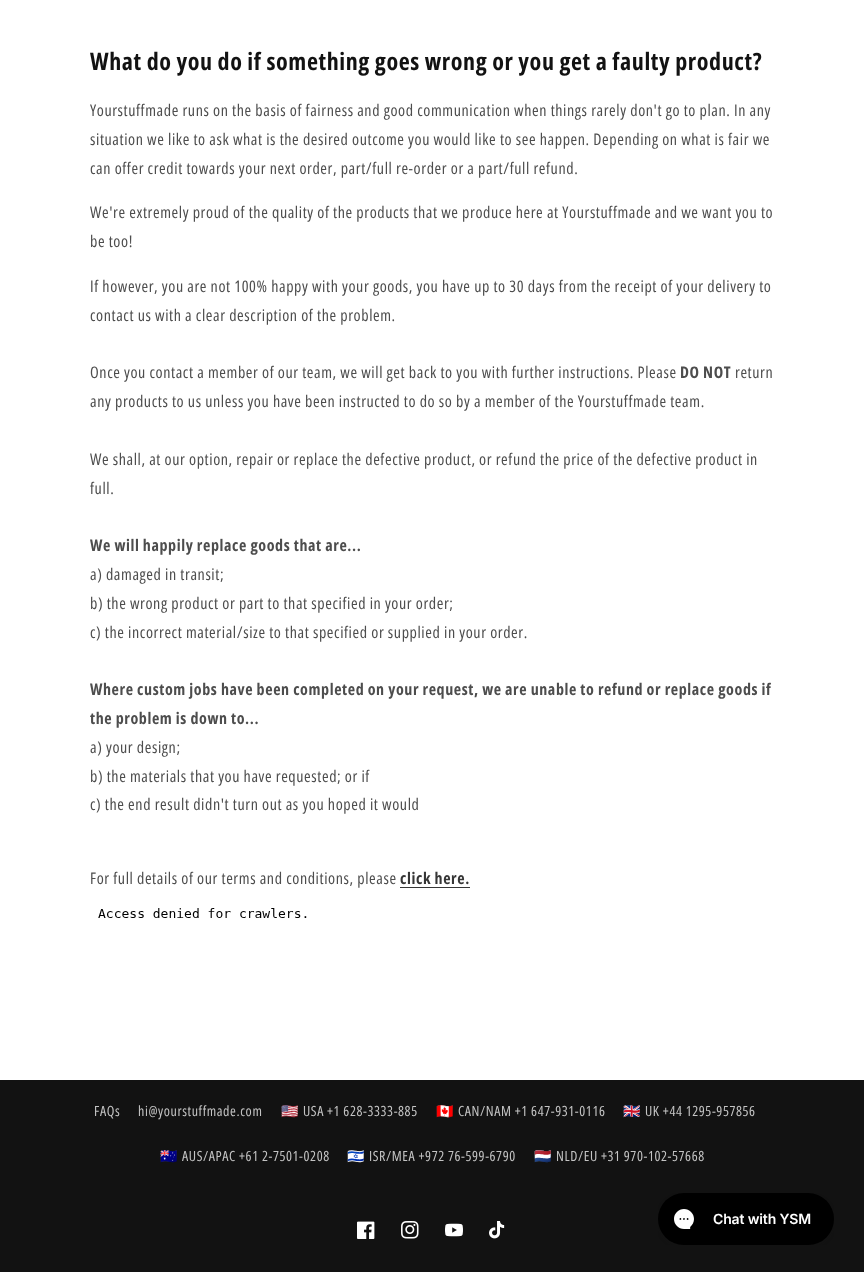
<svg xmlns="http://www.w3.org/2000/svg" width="864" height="1272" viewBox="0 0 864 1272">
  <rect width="100%" height="100%" fill="#fff"/>
  <path d="M400 887h70v1H400z" fill="#363636"/>
  <image x="98" y="908" width="209" height="10" href="img/1.png"/>
  <path d="M0 1080h864v192H0z" fill="#121212"/>
  <image x="357" y="1221" width="18" height="18" href="img/2.png"/>
  <image x="401" y="1221" width="18" height="18" href="img/3.png"/>
  <image x="445" y="1223" width="18" height="14" href="img/4.png"/>
  <image x="489" y="1221" width="16" height="18" href="img/5.png"/>
  <image x="658" y="1193" width="176" height="52" href="img/6.png"/>
  <text x="90" y="70" font-family="Open Sans Condensed" font-size="24" font-weight="bold" letter-spacing="0.6" fill="#121212">What do you do if something goes wrong or you get a faulty product?</text>
  <g font-family="Open Sans Condensed" font-size="16" letter-spacing="0.6" fill="#4d4d4d">
    <text x="90" y="116">Yourstuffmade runs on the basis of fairness and good communication when things rarely don't go to plan. In any</text>
    <text x="90" y="145">situation we like to ask what is the desired outcome you would like to see happen. Depending on what is fair we</text>
    <text x="90" y="174">can offer credit towards your next order, part/full re-order or a part/full refund.</text>
    <text x="90" y="218">We're extremely proud of the quality of the products that we produce here at Yourstuffmade and we want you to</text>
    <text x="90" y="247">be too!</text>
    <text x="90" y="292">If however, you are not 100% happy with your goods, you have up to 30 days from the receipt of your delivery to</text>
    <text x="90" y="321">contact us with a clear description of the problem.</text>
    <text x="90" y="378">Once you contact a member of our team, we will get back to you with further instructions. Please</text>
  </g>
  <text x="680" y="378" font-family="Open Sans Condensed" font-size="16" font-weight="bold" letter-spacing="0.6" fill="#4d4d4d">DO NOT</text>
  <g font-family="Open Sans Condensed" font-size="16" letter-spacing="0.6" fill="#4d4d4d">
    <text x="735" y="378">return</text>
    <text x="90" y="407">any products to us unless you have been instructed to do so by a member of the Yourstuffmade team.</text>
    <text x="90" y="465">We shall, at our option, repair or replace the defective product, or refund the price of the defective product in</text>
    <text x="90" y="494">full.</text>
  </g>
  <text x="90" y="551" font-family="Open Sans Condensed" font-size="16" font-weight="bold" letter-spacing="0.6" fill="#4d4d4d">We will happily replace goods that are...</text>
  <g font-family="Open Sans Condensed" font-size="16" letter-spacing="0.6" fill="#4d4d4d">
    <text x="90" y="580">a) damaged in transit;</text>
    <text x="90" y="609">b) the wrong product or part to that specified in your order;</text>
    <text x="90" y="638">c) the incorrect material/size to that specified or supplied in your order.</text>
  </g>
  <g font-family="Open Sans Condensed" font-size="16" font-weight="bold" letter-spacing="0.6" fill="#4d4d4d">
    <text x="90" y="695">Where custom jobs have been completed on your request, we are unable to refund or replace goods if</text>
    <text x="90" y="724">the problem is down to...</text>
  </g>
  <g font-family="Open Sans Condensed" font-size="16" letter-spacing="0.6" fill="#4d4d4d">
    <text x="90" y="753">a) your design;</text>
    <text x="90" y="782">b) the materials that you have requested; or if</text>
    <text x="90" y="810">c) the end result didn't turn out as you hoped it would</text>
    <text x="90" y="884">For full details of our terms and conditions, please</text>
  </g>
  <text x="400" y="884" font-family="Open Sans Condensed" font-size="16" font-weight="bold" letter-spacing="0.6" fill="#363636">click here.</text>
  <g font-family="Open Sans Condensed" font-size="14" letter-spacing="0.6" fill="#c4c4c4">
    <text x="94" y="1116">FAQs</text>
    <text x="138" y="1116">hi@yourstuffmade.com</text>
  </g>
  <text x="281" y="1116" font-family="Noto Color Emoji" font-size="14" letter-spacing="0.6" fill="#c4c4c4">🇺🇸</text>
  <g font-family="Open Sans Condensed" font-size="14" letter-spacing="0.6" fill="#c4c4c4">
    <text x="303" y="1116">USA</text>
    <text x="327" y="1116">+1 628-3333-885</text>
  </g>
  <text x="436" y="1116" font-family="Noto Color Emoji" font-size="14" letter-spacing="0.6" fill="#c4c4c4">🇨🇦</text>
  <text x="458" y="1116" font-family="Open Sans Condensed" font-size="14" letter-spacing="0.6" fill="#c4c4c4">CAN/NAM +1 647-931-0116</text>
  <text x="623" y="1116" font-family="Noto Color Emoji" font-size="14" letter-spacing="0.6" fill="#c4c4c4">🇬🇧</text>
  <text x="645" y="1116" font-family="Open Sans Condensed" font-size="14" letter-spacing="0.6" fill="#c4c4c4">UK +44 1295-957856</text>
  <text x="160" y="1161" font-family="Noto Color Emoji" font-size="14" letter-spacing="0.6" fill="#c4c4c4">🇦🇺</text>
  <text x="182" y="1161" font-family="Open Sans Condensed" font-size="14" letter-spacing="0.6" fill="#c4c4c4">AUS/APAC +61 2-7501-0208</text>
  <text x="347" y="1161" font-family="Noto Color Emoji" font-size="14" letter-spacing="0.6" fill="#c4c4c4">🇮🇱</text>
  <text x="369" y="1161" font-family="Open Sans Condensed" font-size="14" letter-spacing="0.6" fill="#c4c4c4">ISR/MEA +972 76-599-6790</text>
  <text x="534" y="1161" font-family="Noto Color Emoji" font-size="14" letter-spacing="0.6" fill="#c4c4c4">🇳🇱</text>
  <text x="556" y="1161" font-family="Open Sans Condensed" font-size="14" letter-spacing="0.6" fill="#c4c4c4">NLD/EU +31 970-102-57668</text>
</svg>
